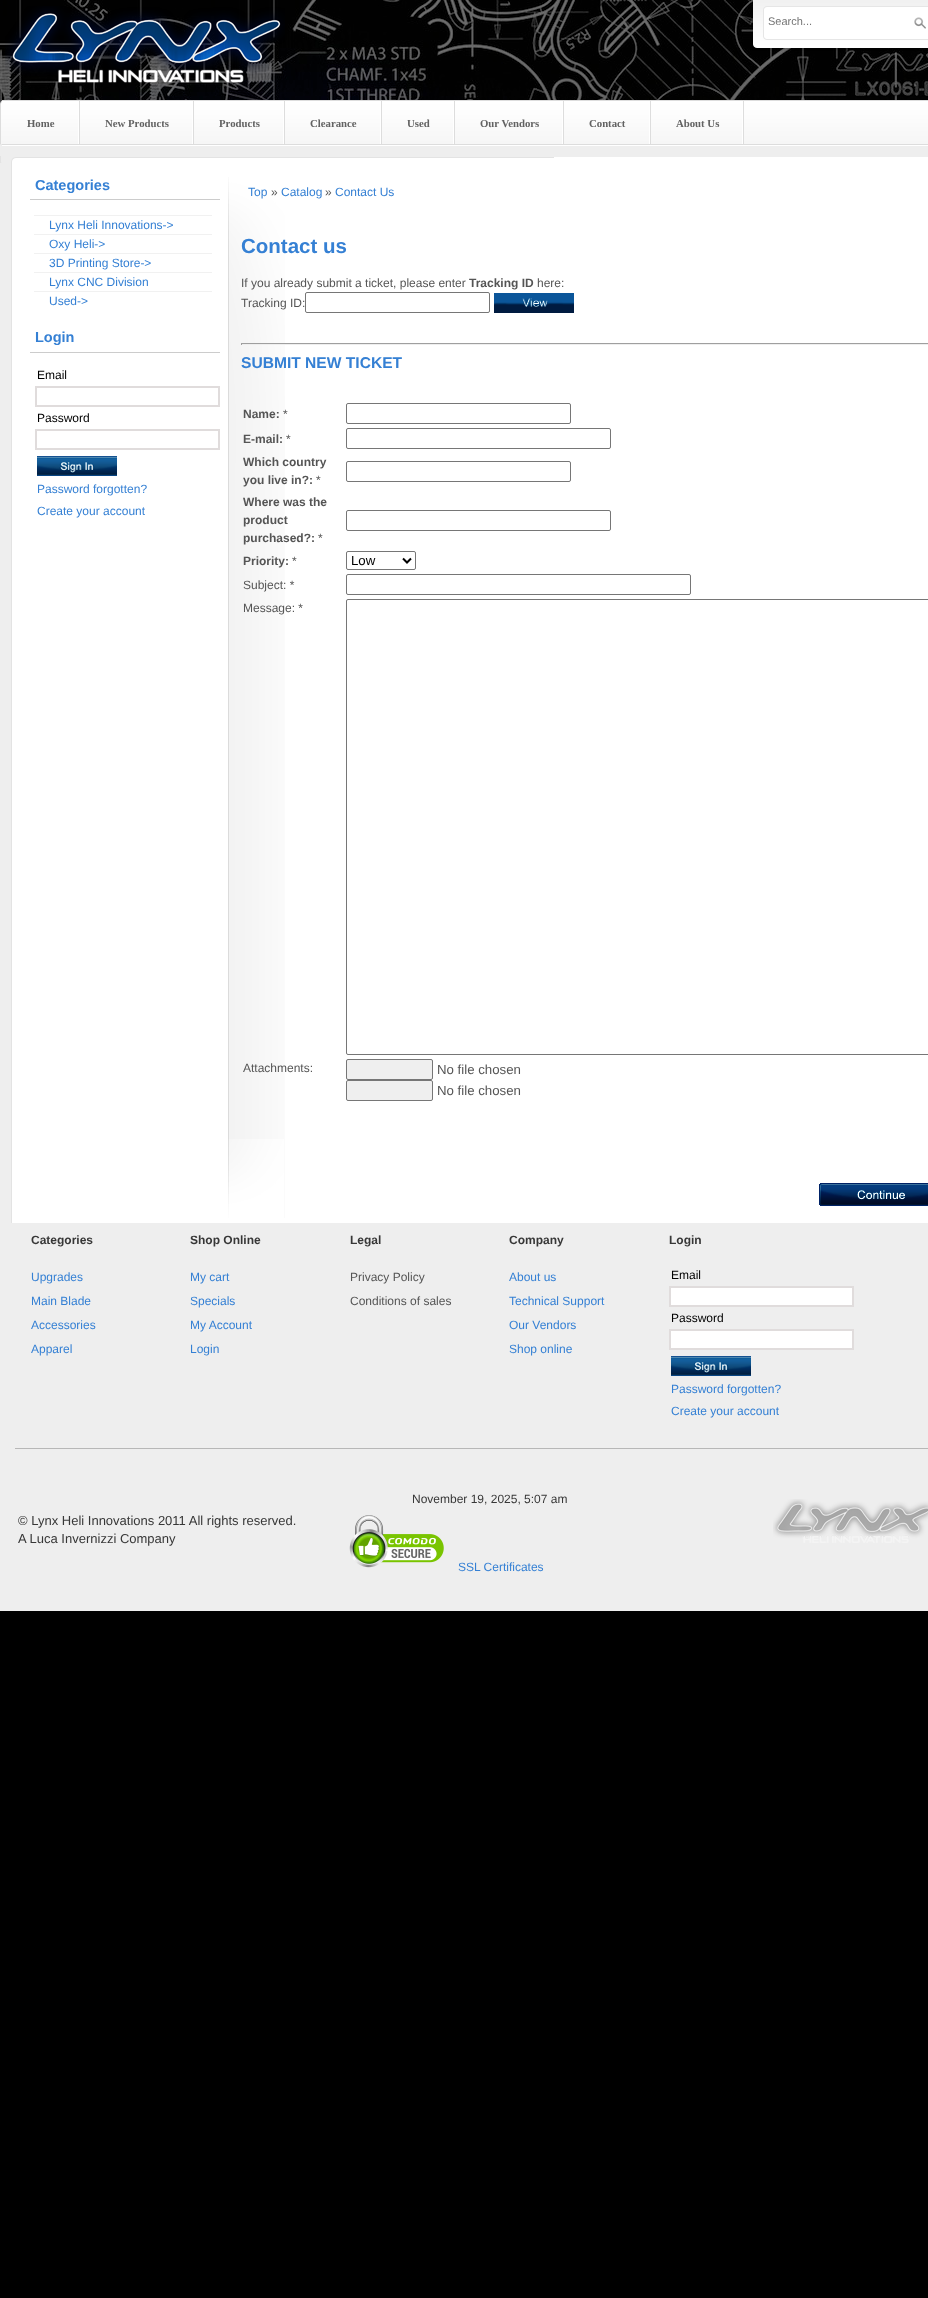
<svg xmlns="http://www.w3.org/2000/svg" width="928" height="2298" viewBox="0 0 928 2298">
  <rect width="100%" height="100%" fill="#000"/>
  <image x="0" y="0" width="928" height="104" href="img/1.png"/>
  <image x="5" y="6" width="280" height="77" href="img/2.png"/>
  <image x="752" y="0" width="176" height="51" href="img/3.png"/>
  <image x="763" y="6" width="165" height="34" href="img/4.png"/>
  <image x="0" y="100" width="928" height="46" href="img/5.png"/>
  <image x="78" y="101" width="2" height="43" href="img/6.png"/>
  <image x="2" y="100" width="2" height="46" href="img/7.png"/>
  <image x="192" y="101" width="2" height="43" href="img/6.png"/>
  <image x="283" y="101" width="2" height="43" href="img/6.png"/>
  <image x="380" y="101" width="2" height="43" href="img/6.png"/>
  <image x="453" y="101" width="2" height="43" href="img/6.png"/>
  <image x="562" y="101" width="2" height="43" href="img/6.png"/>
  <image x="649" y="101" width="2" height="43" href="img/6.png"/>
  <image x="742" y="101" width="2" height="43" href="img/6.png"/>
  <path d="M0 146h928v1465H0z" fill="#eee"/>
  <image x="0" y="156" width="554" height="7" href="img/8.png"/>
  <path d="M554 157h374v6H554z" fill="#fff"/>
  <path d="M12 163h916v1060H12z" fill="#fff"/>
  <path d="M11 163h1v1060H11z" fill="#e3e3e3"/>
  <path d="M30 199h190v1H30z" fill="#ccc"/>
  <path d="M34 215h178v1H34z" fill="#f1f1f1"/>
  <path d="M34 234h178v1H34z" fill="#f1f1f1"/>
  <path d="M34 253h178v1H34z" fill="#f1f1f1"/>
  <path d="M34 272h178v1H34z" fill="#f1f1f1"/>
  <path d="M34 291h178v1H34z" fill="#f1f1f1"/>
  <path d="M30 352h190v1H30z" fill="#ccc"/>
  <path d="M35 386h185v21H35z" fill="#e0dcdc"/>
  <path d="M37 388h181v17H37z" fill="#fff"/>
  <path d="M35 429h185v21H35z" fill="#e0dcdc"/>
  <path d="M37 431h181v17H37z" fill="#fff"/>
  <image x="37" y="456" width="80" height="20" href="img/9.png"/>
  <image x="228" y="177" width="57" height="1041" href="img/10.png"/>
  <image x="228" y="1139" width="56" height="79" href="img/11.png"/>
  <rect x="305.5" y="292.5" width="184" height="20" rx="1.5" fill="none" stroke="#767676"/>
  <image x="494" y="293" width="80" height="20" href="img/12.png"/>
  <path d="M241 343h687v1H241z" fill="#9f9f9f"/>
  <path d="M241 344h687v1H241z" fill="#eee"/>
  <path d="M241 343h1v2H241z" fill="#9f9f9f"/>
  <rect x="346.5" y="403.5" width="224" height="20" rx="1.5" fill="none" stroke="#767676"/>
  <rect x="346.5" y="428.5" width="264" height="20" rx="1.5" fill="none" stroke="#767676"/>
  <rect x="346.5" y="461.5" width="224" height="20" rx="1.5" fill="none" stroke="#767676"/>
  <rect x="346.5" y="510.5" width="264" height="20" rx="1.5" fill="none" stroke="#767676"/>
  <rect x="346.5" y="551.5" width="69" height="18" rx="1.5" fill="none" stroke="#767676"/>
  <path d="M403 558.5L407 562.5L411 558.5" fill="none" stroke="#000" stroke-width="2"/>
  <rect x="346.5" y="574.5" width="344" height="20" rx="1.5" fill="none" stroke="#767676"/>
  <rect x="346.5" y="599.5" width="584" height="455" rx="1.5" fill="none" stroke="#767676"/>
  <rect x="346.5" y="1059.5" width="86" height="20" rx="1.5" fill="#efefef" stroke="#767676"/>
  <rect x="346.5" y="1080.5" width="86" height="20" rx="1.5" fill="#efefef" stroke="#767676"/>
  <image x="819" y="1183" width="109" height="23" href="img/13.png"/>
  <path d="M669 1286h185v21H669z" fill="#e0dcdc"/>
  <path d="M671 1288h181v17H671z" fill="#fff"/>
  <path d="M669 1329h185v21H669z" fill="#e0dcdc"/>
  <path d="M671 1331h181v17H671z" fill="#fff"/>
  <image x="671" y="1356" width="80" height="20" href="img/14.png"/>
  <path d="M15 1448h913v1H15z" fill="#b7b7b7"/>
  <image x="773" y="1499" width="155" height="44" href="img/15.png"/>
  <image x="349" y="1515" width="95" height="53" href="img/16.png"/>
  <text x="768" y="25" font-family="Liberation Sans" font-size="11" fill="#757575">Search...</text>
  <g font-family="Liberation Serif" font-size="10.75" font-weight="bold" fill="#626262">
    <text x="27" y="127">Home</text>
    <text x="105" y="127">New Products</text>
    <text x="219" y="127">Products</text>
    <text x="310" y="127">Clearance</text>
    <text x="407" y="127">Used</text>
    <text x="480" y="127">Our Vendors</text>
    <text x="589" y="127">Contact</text>
    <text x="676" y="127">About Us</text>
  </g>
  <text x="35" y="190" font-family="Liberation Sans" font-size="14.5" font-weight="bold" fill="#3580d4">Categories</text>
  <g font-family="Liberation Sans" font-size="12" fill="#3580d4">
    <text x="49" y="229">Lynx Heli Innovations-&gt;</text>
    <text x="49" y="248">Oxy Heli-&gt;</text>
    <text x="49" y="267">3D Printing Store-&gt;</text>
    <text x="49" y="286">Lynx CNC Division</text>
    <text x="49" y="305">Used-&gt;</text>
  </g>
  <text x="35" y="342" font-family="Liberation Sans" font-size="14.5" font-weight="bold" fill="#3580d4">Login</text>
  <g font-family="Liberation Sans" font-size="12" fill="#000">
    <text x="37" y="379">Email</text>
    <text x="37" y="422">Password</text>
  </g>
  <g font-family="Liberation Sans" font-size="12" fill="#3580d4">
    <text x="37" y="493">Password forgotten?</text>
    <text x="37" y="515">Create your account</text>
    <text x="248" y="196">Top</text>
  </g>
  <text x="271" y="196" font-family="Liberation Sans" font-size="12" fill="#555">»</text>
  <text x="281" y="196" font-family="Liberation Sans" font-size="12" fill="#3580d4">Catalog</text>
  <text x="325" y="196" font-family="Liberation Sans" font-size="12" fill="#555">»</text>
  <text x="335" y="196" font-family="Liberation Sans" font-size="12" fill="#3580d4">Contact Us</text>
  <text x="241" y="253" font-family="Liberation Sans" font-size="20.5" font-weight="bold" fill="#3580d4">Contact us</text>
  <text x="241" y="287" font-family="Liberation Sans" font-size="12" fill="#555">If you already submit a ticket, please enter</text>
  <text x="469" y="287" font-family="Liberation Sans" font-size="12" font-weight="bold" fill="#555">Tracking ID</text>
  <g font-family="Liberation Sans" font-size="12" fill="#555">
    <text x="537" y="287">here:</text>
    <text x="241" y="307">Tracking ID:</text>
  </g>
  <text x="241" y="368" font-family="Liberation Sans" font-size="15.6" font-weight="bold" fill="#3580d4">SUBMIT NEW TICKET</text>
  <text x="243" y="418" font-family="Liberation Sans" font-size="12" font-weight="bold" fill="#555">Name:</text>
  <text x="283" y="418" font-family="Liberation Sans" font-size="12" fill="#555">*</text>
  <text x="243" y="443" font-family="Liberation Sans" font-size="12" font-weight="bold" fill="#555">E-mail:</text>
  <text x="286" y="443" font-family="Liberation Sans" font-size="12" fill="#555">*</text>
  <g font-family="Liberation Sans" font-size="12" font-weight="bold" fill="#555">
    <text x="243" y="466">Which country</text>
    <text x="243" y="484">you live in?:</text>
  </g>
  <text x="316" y="484" font-family="Liberation Sans" font-size="12" fill="#555">*</text>
  <g font-family="Liberation Sans" font-size="12" font-weight="bold" fill="#555">
    <text x="243" y="506">Where was the</text>
    <text x="243" y="524">product</text>
    <text x="243" y="542">purchased?:</text>
  </g>
  <text x="318" y="542" font-family="Liberation Sans" font-size="12" fill="#555">*</text>
  <text x="243" y="565" font-family="Liberation Sans" font-size="12" font-weight="bold" fill="#555">Priority:</text>
  <text x="292" y="565" font-family="Liberation Sans" font-size="12" fill="#555">*</text>
  <text x="351" y="565" font-family="Liberation Sans" font-size="13.25" fill="#000">Low</text>
  <g font-family="Liberation Sans" font-size="12" fill="#555">
    <text x="243" y="589">Subject: *</text>
    <text x="243" y="612">Message: *</text>
    <text x="243" y="1072">Attachments:</text>
  </g>
  <g font-family="Liberation Sans" font-size="13.25" fill="#555">
    <text x="437" y="1074">No file chosen</text>
    <text x="437" y="1095">No file chosen</text>
  </g>
  <text x="31" y="1244" font-family="Liberation Sans" font-size="12" font-weight="bold" fill="#373737">Categories</text>
  <g font-family="Liberation Sans" font-size="12" fill="#3580d4">
    <text x="31" y="1281">Upgrades</text>
    <text x="31" y="1305">Main Blade</text>
    <text x="31" y="1329">Accessories</text>
    <text x="31" y="1353">Apparel</text>
  </g>
  <text x="190" y="1244" font-family="Liberation Sans" font-size="12" font-weight="bold" fill="#373737">Shop Online</text>
  <g font-family="Liberation Sans" font-size="12" fill="#3580d4">
    <text x="190" y="1281">My cart</text>
    <text x="190" y="1305">Specials</text>
    <text x="190" y="1329">My Account</text>
    <text x="190" y="1353">Login</text>
  </g>
  <text x="350" y="1244" font-family="Liberation Sans" font-size="12" font-weight="bold" fill="#373737">Legal</text>
  <g font-family="Liberation Sans" font-size="12" fill="#555">
    <text x="350" y="1281">Privacy Policy</text>
    <text x="350" y="1305">Conditions of sales</text>
  </g>
  <text x="509" y="1244" font-family="Liberation Sans" font-size="12" font-weight="bold" fill="#373737">Company</text>
  <g font-family="Liberation Sans" font-size="12" fill="#3580d4">
    <text x="509" y="1281">About us</text>
    <text x="509" y="1305">Technical Support</text>
    <text x="509" y="1329">Our Vendors</text>
    <text x="509" y="1353">Shop online</text>
  </g>
  <text x="669" y="1244" font-family="Liberation Sans" font-size="12" font-weight="bold" fill="#373737">Login</text>
  <g font-family="Liberation Sans" font-size="12" fill="#000">
    <text x="671" y="1279">Email</text>
    <text x="671" y="1322">Password</text>
  </g>
  <g font-family="Liberation Sans" font-size="12" fill="#3580d4">
    <text x="671" y="1393">Password forgotten?</text>
    <text x="671" y="1415">Create your account</text>
  </g>
  <text x="412" y="1503" font-family="Liberation Sans" font-size="12" fill="#373737">November 19, 2025, 5:07 am</text>
  <g font-family="Liberation Sans" font-size="13" fill="#373737">
    <text x="18" y="1525">© Lynx Heli Innovations 2011 All rights reserved.</text>
    <text x="18" y="1543">A Luca Invernizzi Company</text>
  </g>
  <text x="458" y="1571" font-family="Liberation Sans" font-size="12" fill="#3580d4">SSL Certificates</text>
</svg>
